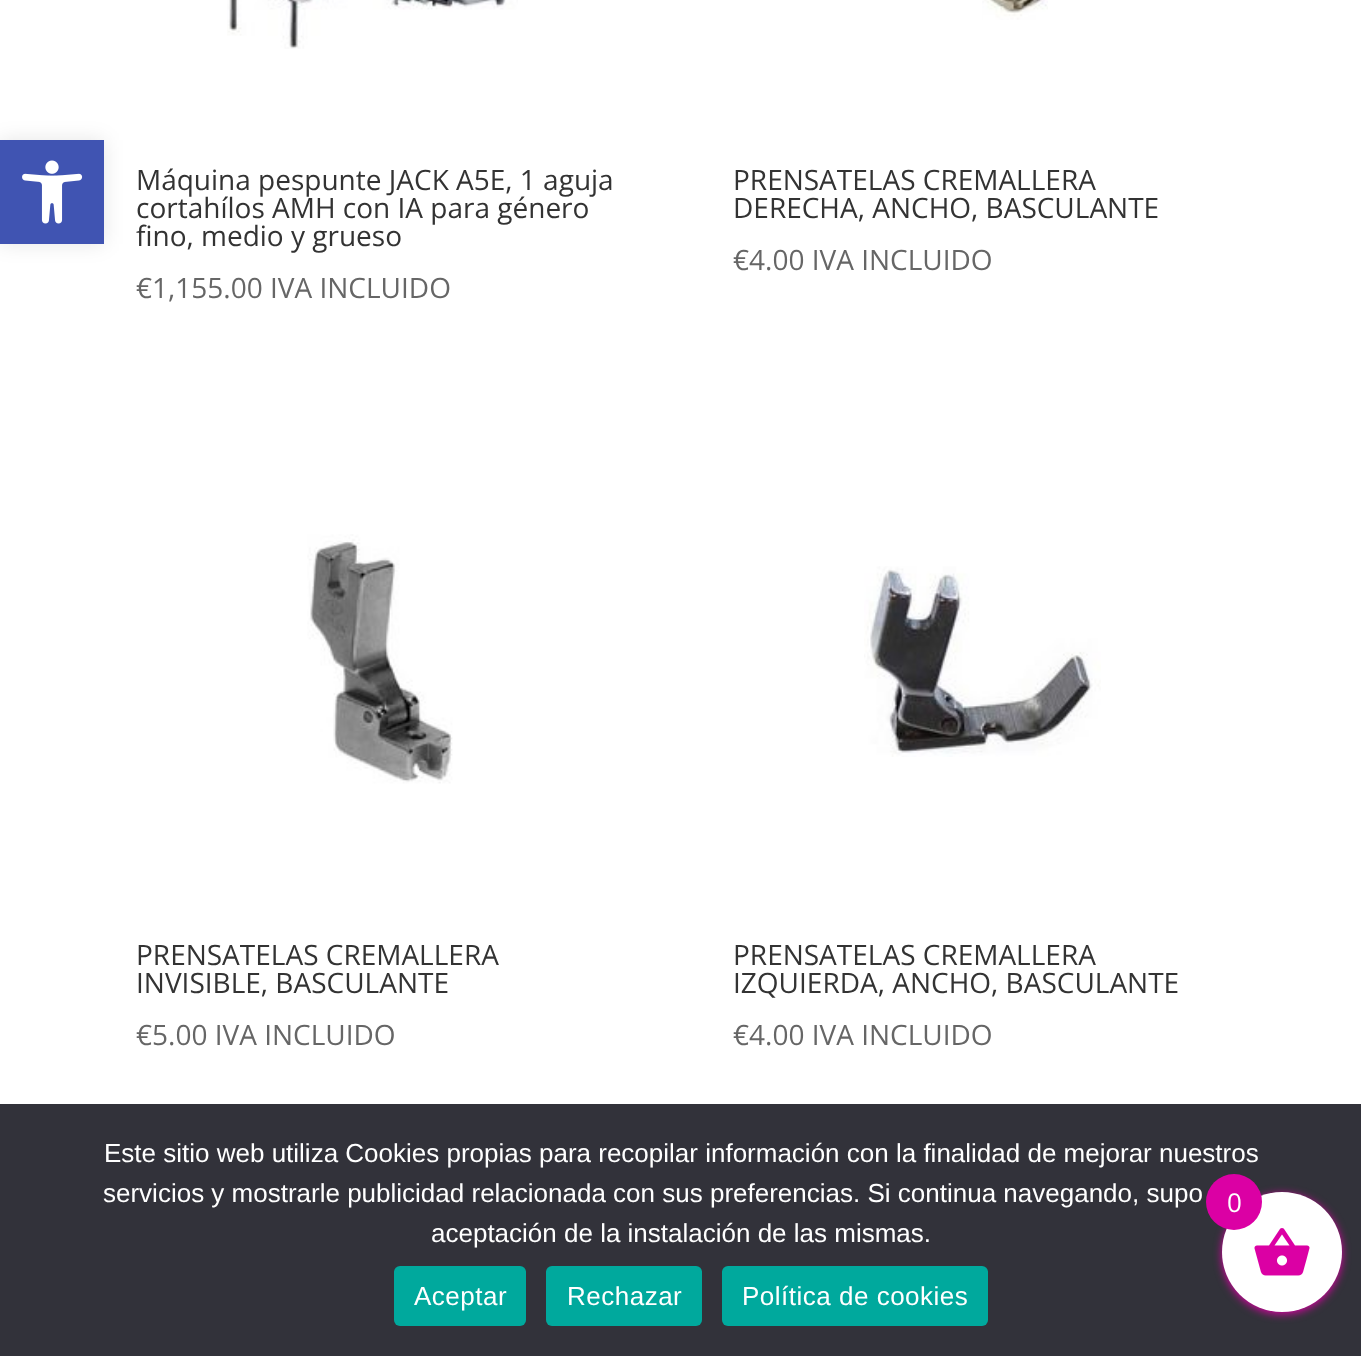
<svg xmlns="http://www.w3.org/2000/svg" width="1361" height="1356" viewBox="0 0 1361 1356">
  <rect width="100%" height="100%" fill="#fff"/>
  <path d="M0 140h104v104H0z" fill="#0000001a" filter="blur(10px)"/>
  <path d="M0 140h104v104H0z" fill="#4054b2"/>
  <image x="22" y="160" width="61" height="64" href="img/1.png"/>
  <image x="227" y="0" width="291" height="49" href="img/2.png"/>
  <image x="982" y="0" width="66" height="20" href="img/3.png"/>
  <image x="307" y="534" width="146" height="250" href="img/4.png"/>
  <image x="864" y="566" width="237" height="191" href="img/5.png"/>
  <path d="M0 1104h1361v252H0z" fill="#32323a"/>
  <rect x="394" y="1266" width="132" height="60" rx="6" fill="#00a99d"/>
  <rect x="546" y="1266" width="156" height="60" rx="6" fill="#00a99d"/>
  <rect x="722" y="1266" width="266" height="60" rx="6" fill="#00a99d"/>
  <rect x="1222" y="1194" width="120" height="120" rx="60" fill="#db00a4" filter="blur(4px)"/>
  <circle cx="1282" cy="1252" r="60" fill="#fff"/>
  <image x="1254" y="1228" width="56" height="48" href="img/6.png"/>
  <circle cx="1234" cy="1202" r="28" fill="#db00a4"/>
  <g font-family="Open Sans" font-size="28" fill="#333">
    <text x="136" y="190">Máquina pespunte JACK A5E, 1 aguja</text>
    <text x="136" y="218">cortahílos AMH con IA para género</text>
    <text x="136" y="246">fino, medio y grueso</text>
  </g>
  <text x="136" y="298" font-family="Open Sans" font-size="28" fill="#666">€1,155.00 IVA INCLUIDO</text>
  <g font-family="Open Sans" font-size="28" fill="#333">
    <text x="733" y="190">PRENSATELAS CREMALLERA</text>
    <text x="733" y="218">DERECHA, ANCHO, BASCULANTE</text>
  </g>
  <text x="733" y="270" font-family="Open Sans" font-size="28" fill="#666">€4.00 IVA INCLUIDO</text>
  <g font-family="Open Sans" font-size="28" fill="#333">
    <text x="136" y="965">PRENSATELAS CREMALLERA</text>
    <text x="136" y="993">INVISIBLE, BASCULANTE</text>
  </g>
  <text x="136" y="1045" font-family="Open Sans" font-size="28" fill="#666">€5.00 IVA INCLUIDO</text>
  <g font-family="Open Sans" font-size="28" fill="#333">
    <text x="733" y="965">PRENSATELAS CREMALLERA</text>
    <text x="733" y="993">IZQUIERDA, ANCHO, BASCULANTE</text>
  </g>
  <text x="733" y="1045" font-family="Open Sans" font-size="28" fill="#666">€4.00 IVA INCLUIDO</text>
  <g font-family="Liberation Sans" font-size="26" fill="#fff">
    <text x="104" y="1162">Este sitio web utiliza Cookies propias para recopilar información con la finalidad de mejorar nuestros</text>
    <text x="103" y="1202">servicios y mostrarle publicidad relacionada con sus preferencias. Si continua navegando, supo</text>
    <text x="431" y="1242">aceptación de la instalación de las mismas.</text>
  </g>
  <g font-family="Liberation Sans" font-size="26" letter-spacing="0.5" fill="#fff">
    <text x="414" y="1305">Aceptar</text>
    <text x="567" y="1305">Rechazar</text>
    <text x="742" y="1305">Política de cookies</text>
  </g>
  <text x="1227" y="1212" font-family="Open Sans" font-size="26" fill="#fff">0</text>
</svg>
